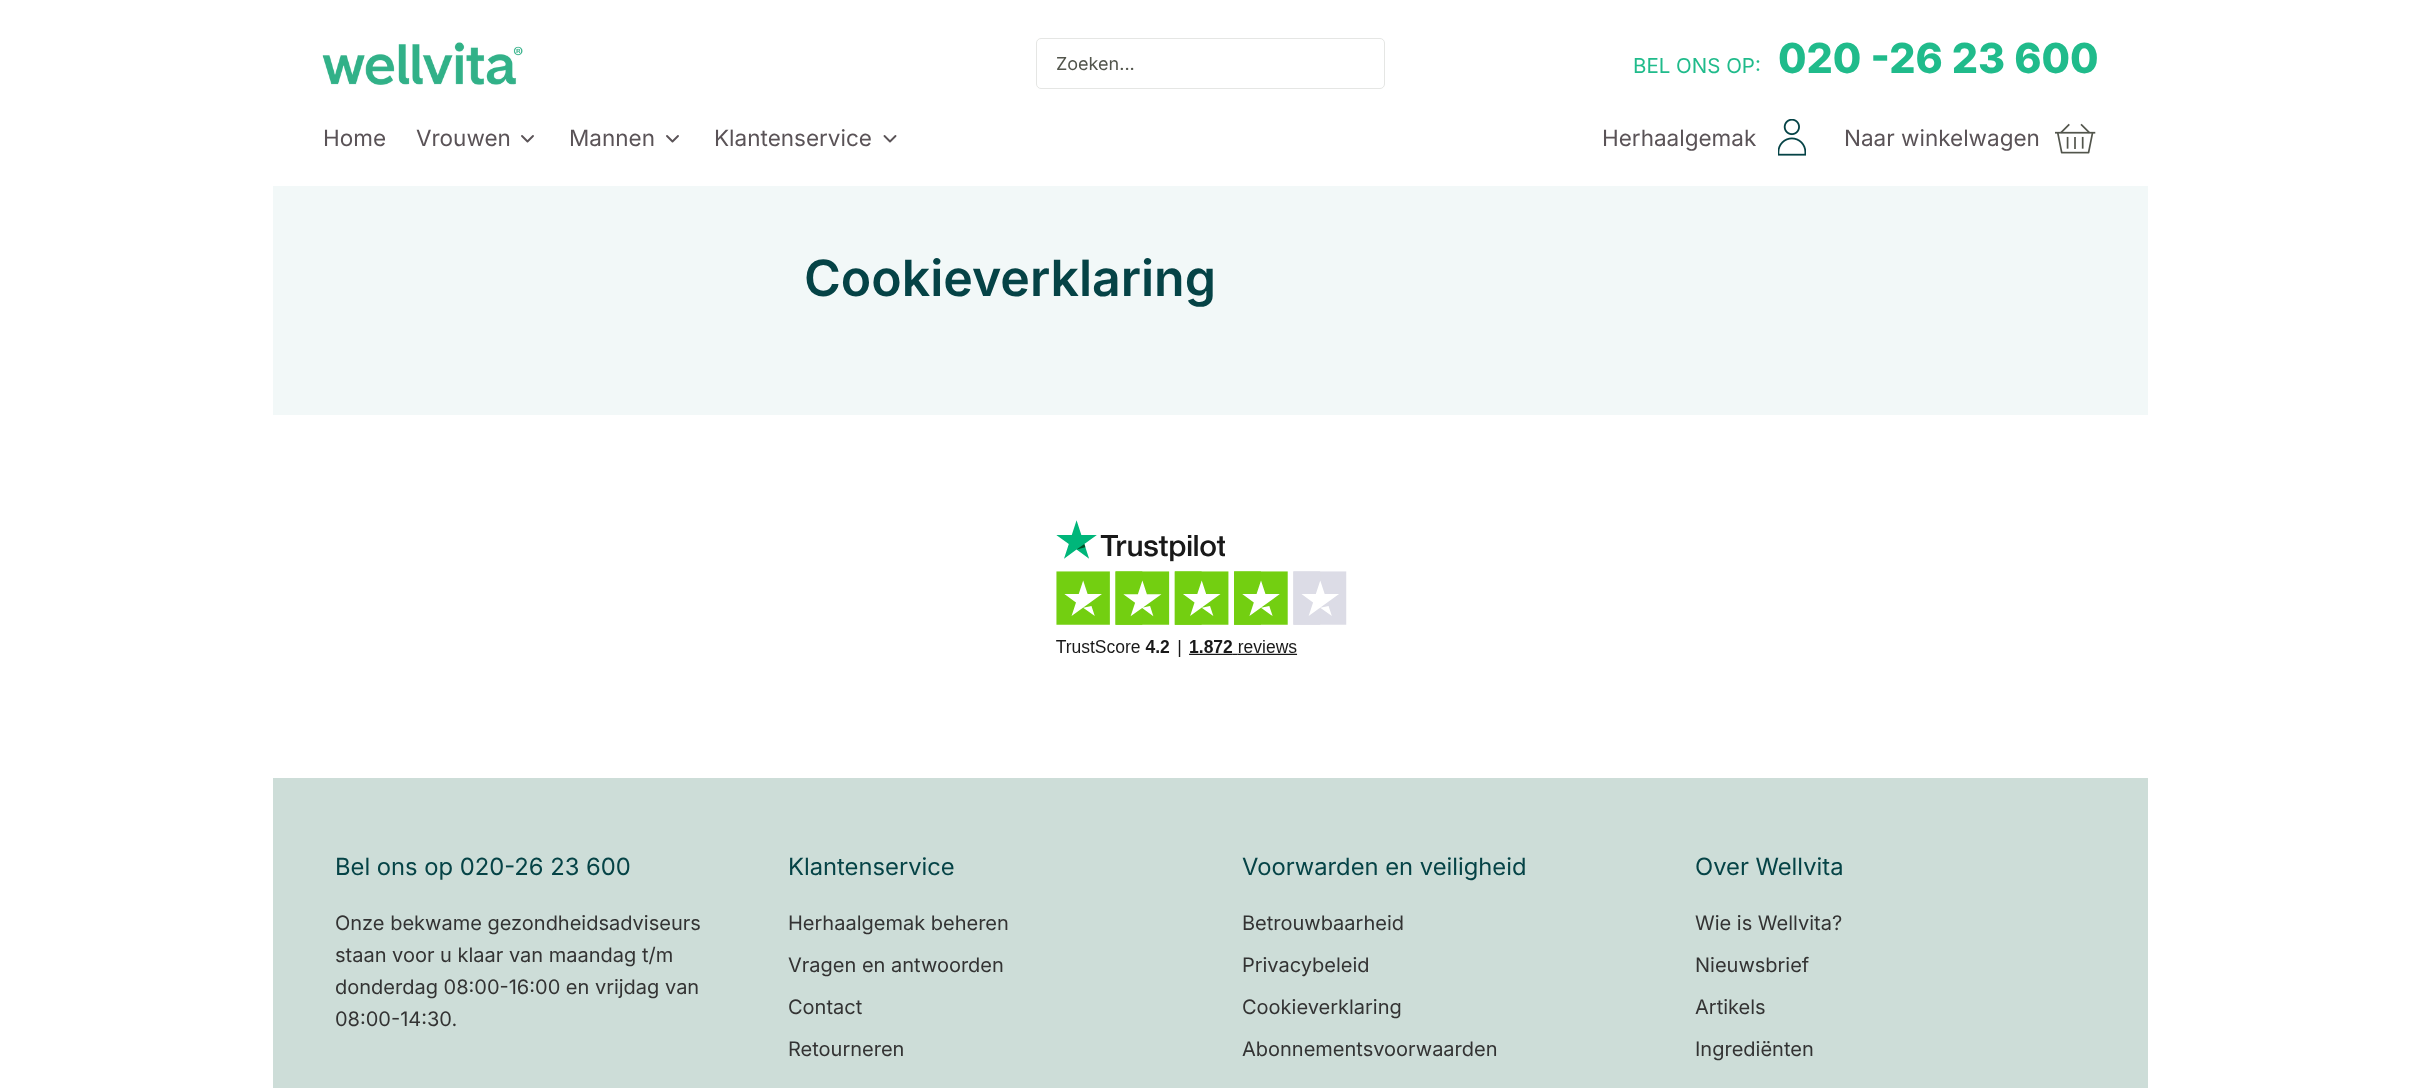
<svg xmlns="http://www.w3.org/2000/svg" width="2419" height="1088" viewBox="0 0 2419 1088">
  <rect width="100%" height="100%" fill="#fff"/>
  <image x="322" y="42" width="201" height="43" href="img/1.png"/>
  <rect x="1036.5" y="38.5" width="348" height="50" rx="4.5" fill="none" stroke="#e5e6e4"/>
  <path d="M522 136L527.5 141.5L533 136" fill="none" stroke="#5a5357" stroke-width="1.9" stroke-linecap="round" stroke-linejoin="round"/>
  <path d="M667 136L672.5 141.5L678 136" fill="none" stroke="#5a5357" stroke-width="1.9" stroke-linecap="round" stroke-linejoin="round"/>
  <path d="M884.5 136L890 141.5L895.5 136" fill="none" stroke="#5a5357" stroke-width="1.9" stroke-linecap="round" stroke-linejoin="round"/>
  <image x="1778" y="119" width="28" height="37" href="img/2.png"/>
  <image x="2055" y="123" width="41" height="31" href="img/3.png"/>
  <path d="M273 186h1875v229H273z" fill="#f2f8f8"/>
  <image x="1056" y="520" width="291" height="137" href="img/4.png"/>
  <path d="M273 778h1875v310H273z" fill="#cdddd8"/>
  <text x="1056" y="70" font-family="Inter" font-size="18" fill="#52554c">Zoeken...</text>
  <text x="1633" y="73" font-family="Inter" font-size="20.5" fill="#20bb8b">BEL ONS OP:</text>
  <text x="1778" y="73" font-family="Inter" font-size="41.25" font-weight="800" fill="#20bb8b">020 -26 23 600</text>
  <g font-family="Inter" font-size="22.5" fill="#5a5357">
    <text x="323" y="146">Home</text>
    <text x="416" y="146">Vrouwen</text>
    <text x="569" y="146">Mannen</text>
    <text x="714" y="146">Klantenservice</text>
    <text x="1602" y="146">Herhaalgemak</text>
    <text x="1844" y="146">Naar winkelwagen</text>
  </g>
  <text x="804" y="296" font-family="Inter" font-size="50" font-weight="600" fill="#054346">Cookieverklaring</text>
  <text x="335" y="875" font-family="Inter" font-size="23.75" fill="#054346">Bel ons op 020-26 23 600</text>
  <g font-family="Inter" font-size="20" fill="#333">
    <text x="335" y="930">Onze bekwame gezondheidsadviseurs</text>
    <text x="335" y="962">staan voor u klaar van maandag t/m</text>
    <text x="335" y="994">donderdag 08:00-16:00 en vrijdag van</text>
    <text x="335" y="1026">08:00-14:30.</text>
  </g>
  <text x="788" y="875" font-family="Inter" font-size="23.75" fill="#054346">Klantenservice</text>
  <g font-family="Inter" font-size="20" fill="#333">
    <text x="788" y="930">Herhaalgemak beheren</text>
    <text x="788" y="972">Vragen en antwoorden</text>
    <text x="788" y="1014">Contact</text>
    <text x="788" y="1056">Retourneren</text>
  </g>
  <text x="1242" y="875" font-family="Inter" font-size="23.75" fill="#054346">Voorwarden en veiligheid</text>
  <g font-family="Inter" font-size="20" fill="#333">
    <text x="1242" y="930">Betrouwbaarheid</text>
    <text x="1242" y="972">Privacybeleid</text>
    <text x="1242" y="1014">Cookieverklaring</text>
    <text x="1242" y="1056">Abonnementsvoorwaarden</text>
  </g>
  <text x="1695" y="875" font-family="Inter" font-size="23.75" fill="#054346">Over Wellvita</text>
  <g font-family="Inter" font-size="20" fill="#333">
    <text x="1695" y="930">Wie is Wellvita?</text>
    <text x="1695" y="972">Nieuwsbrief</text>
    <text x="1695" y="1014">Artikels</text>
    <text x="1695" y="1056">Ingrediënten</text>
  </g>
</svg>
